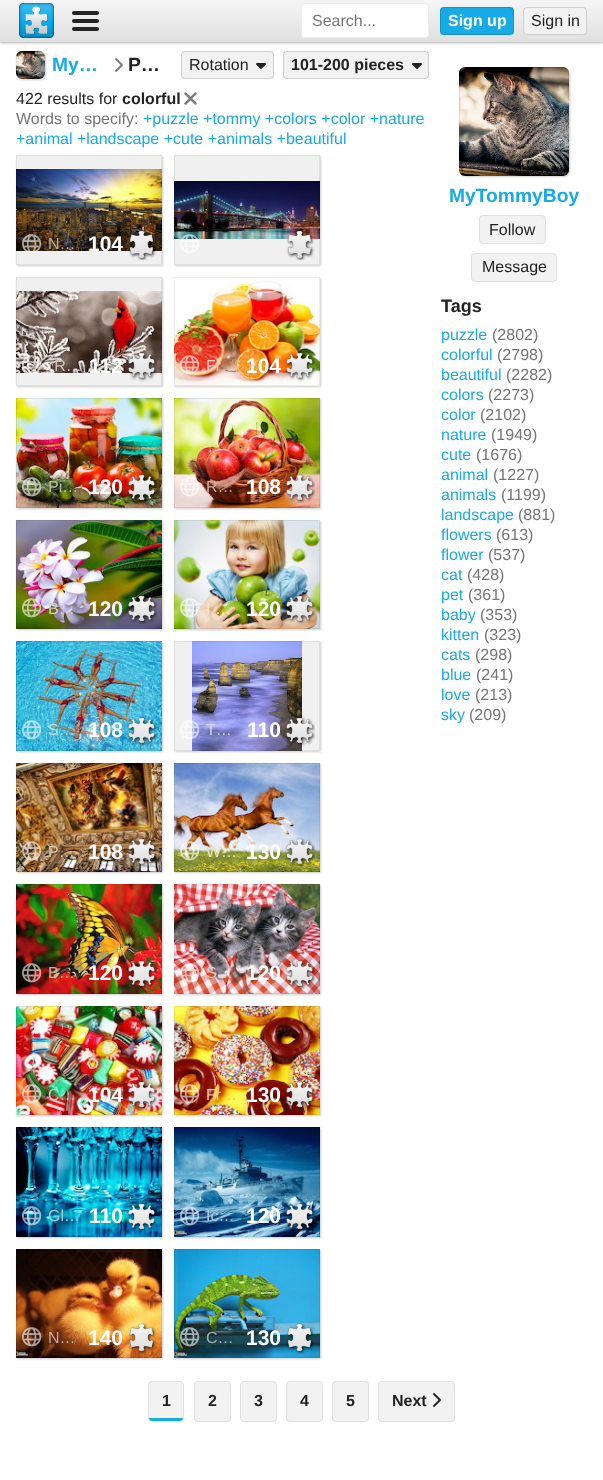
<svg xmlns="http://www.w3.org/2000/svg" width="603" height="1480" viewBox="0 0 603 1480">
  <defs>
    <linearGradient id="g1" gradientUnits="userSpaceOnUse" x1="302" y1="0" x2="302" y2="42"><stop offset="0" stop-color="#f5f5f5"/><stop offset="1" stop-color="#e0e0e0"/></linearGradient>
    <clipPath id="clip1"><path d="M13 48H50V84H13ZM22 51H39C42.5 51 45 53.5 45 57V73C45 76.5 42.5 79 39 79H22C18.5 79 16 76.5 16 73V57C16 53.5 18.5 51 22 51Z" clip-rule="evenodd"/></clipPath>
  </defs>
  <rect width="100%" height="100%" fill="#fff"/>
  <path d="M0 1h603v42H0z" fill="#0000004d" filter="blur(1px)"/>
  <path d="M0 0h603v42H0z" fill="url(#g1)"/>
  <image x="19" y="3" width="35" height="35" href="img/1.png"/>
  <rect x="72" y="11" width="27" height="4" rx="2" fill="#222"/>
  <rect x="72" y="19" width="27" height="4" rx="2" fill="#222"/>
  <rect x="72" y="27" width="27" height="4" rx="2" fill="#222"/>
  <rect x="301" y="3" width="128" height="35" rx="4" fill="#fff"/>
  <rect x="301.5" y="3.5" width="127" height="34" rx="3.5" fill="none" stroke="#00000012"/>
  <rect x="440" y="7" width="74" height="28" rx="4" fill="#17abe6"/>
  <rect x="440.5" y="7.5" width="73" height="27" rx="3.5" fill="none" stroke="#00000026"/>
  <rect x="523" y="7" width="64" height="28" rx="4" fill="#f2f2f2"/>
  <rect x="523.5" y="7.5" width="63" height="27" rx="3.5" fill="none" stroke="#00000026"/>
  <g clip-path="url(#clip1)">
    <rect x="17" y="52" width="29" height="28" rx="6" fill="#00000033" filter="blur(1px)"/>
  </g>
  <image x="16" y="51" width="29" height="28" href="img/2.png"/>
  <rect x="16.5" y="51.5" width="28" height="27" rx="5.5" fill="none" stroke="#00000012"/>
  <image x="115" y="58" width="8" height="14" href="img/3.png"/>
  <rect x="181" y="51" width="93" height="28" rx="4" fill="#f2f2f2"/>
  <rect x="181.5" y="51.5" width="92" height="27" rx="3.5" fill="none" stroke="#00000026"/>
  <image x="256" y="63" width="10" height="6" href="img/4.png"/>
  <rect x="283" y="51" width="146" height="28" rx="4" fill="#f2f2f2"/>
  <rect x="283.5" y="51.5" width="145" height="27" rx="3.5" fill="none" stroke="#00000026"/>
  <image x="412" y="63" width="10" height="6" href="img/4.png"/>
  <image x="184" y="92" width="13" height="13" href="img/5.png"/>
  <path d="M17 156h146v110H17z" fill="#00000033" filter="blur(1px)"/>
  <path d="M16 155h146v110H16z" fill="#f0f0f0"/>
  <image x="16" y="169" width="146" height="82" href="img/6.png"/>
  <path d="M16.5 155.5h145v109H16.5z" fill="none" stroke="#00000012"/>
  <image x="22" y="234" width="20" height="19" href="img/7.png"/>
  <image x="128" y="229" width="29" height="31" href="img/8.png"/>
  <path d="M175 156h146v110H175z" fill="#00000033" filter="blur(1px)"/>
  <path d="M174 155h146v110H174z" fill="#f0f0f0"/>
  <image x="174" y="181" width="146" height="58" href="img/9.png"/>
  <path d="M174.5 155.5h145v109H174.5z" fill="none" stroke="#00000012"/>
  <image x="180" y="234" width="19" height="19" href="img/10.png"/>
  <image x="286" y="230" width="29" height="30" href="img/11.png"/>
  <path d="M17 278h146v109H17z" fill="#00000033" filter="blur(1px)"/>
  <path d="M16 277h146v109H16z" fill="#f0f0f0"/>
  <image x="16" y="291" width="146" height="82" href="img/12.png"/>
  <path d="M16.5 277.5h145v108H16.5z" fill="none" stroke="#00000012"/>
  <image x="22" y="355" width="20" height="19" href="img/13.png"/>
  <image x="128" y="351" width="29" height="31" href="img/14.png"/>
  <path d="M175 278h146v109H175z" fill="#00000033" filter="blur(1px)"/>
  <image x="174" y="277" width="146" height="109" href="img/15.png"/>
  <path d="M174.5 277.5h145v108H174.5z" fill="none" stroke="#00000012"/>
  <image x="180" y="355" width="20" height="20" href="img/16.png"/>
  <image x="285" y="352" width="30" height="30" href="img/17.png"/>
  <path d="M17 399h146v110H17z" fill="#00000033" filter="blur(1px)"/>
  <image x="16" y="398" width="146" height="110" href="img/18.png"/>
  <path d="M16.5 398.5h145v109H16.5z" fill="none" stroke="#00000012"/>
  <image x="22" y="477" width="20" height="20" href="img/19.png"/>
  <image x="127" y="473" width="30" height="30" href="img/20.png"/>
  <path d="M175 399h146v110H175z" fill="#00000033" filter="blur(1px)"/>
  <image x="174" y="398" width="146" height="110" href="img/21.png"/>
  <path d="M174.5 398.5h145v109H174.5z" fill="none" stroke="#00000012"/>
  <image x="180" y="477" width="19" height="20" href="img/22.png"/>
  <image x="285" y="473" width="30" height="30" href="img/23.png"/>
  <path d="M17 521h146v109H17z" fill="#00000033" filter="blur(1px)"/>
  <image x="16" y="520" width="146" height="109" href="img/24.png"/>
  <path d="M16.5 520.5h145v108H16.5z" fill="none" stroke="#00000012"/>
  <image x="22" y="598" width="20" height="20" href="img/25.png"/>
  <image x="127" y="595" width="30" height="29" href="img/26.png"/>
  <path d="M175 521h146v109H175z" fill="#00000033" filter="blur(1px)"/>
  <image x="174" y="520" width="146" height="109" href="img/27.png"/>
  <path d="M174.5 520.5h145v108H174.5z" fill="none" stroke="#00000012"/>
  <image x="180" y="598" width="20" height="20" href="img/28.png"/>
  <image x="285" y="594" width="30" height="31" href="img/29.png"/>
  <path d="M17 642h146v110H17z" fill="#00000033" filter="blur(1px)"/>
  <image x="16" y="641" width="146" height="110" href="img/30.png"/>
  <path d="M16.5 641.5h145v109H16.5z" fill="none" stroke="#00000012"/>
  <image x="22" y="720" width="20" height="20" href="img/31.png"/>
  <image x="127" y="716" width="30" height="30" href="img/32.png"/>
  <path d="M175 642h146v110H175z" fill="#00000033" filter="blur(1px)"/>
  <path d="M174 641h146v110H174z" fill="#f0f0f0"/>
  <image x="192" y="641" width="110" height="110" href="img/33.png"/>
  <path d="M174.5 641.5h145v109H174.5z" fill="none" stroke="#00000012"/>
  <image x="180" y="720" width="20" height="19" href="img/34.png"/>
  <image x="285" y="716" width="30" height="30" href="img/35.png"/>
  <path d="M17 764h146v109H17z" fill="#00000033" filter="blur(1px)"/>
  <image x="16" y="763" width="146" height="109" href="img/36.png"/>
  <path d="M16.5 763.5h145v108H16.5z" fill="none" stroke="#00000012"/>
  <image x="22" y="841" width="20" height="20" href="img/37.png"/>
  <image x="127" y="837" width="30" height="31" href="img/38.png"/>
  <path d="M175 764h146v109H175z" fill="#00000033" filter="blur(1px)"/>
  <image x="174" y="763" width="146" height="109" href="img/39.png"/>
  <path d="M174.5 763.5h145v108H174.5z" fill="none" stroke="#00000012"/>
  <image x="180" y="841" width="20" height="20" href="img/40.png"/>
  <image x="285" y="837" width="30" height="30" href="img/41.png"/>
  <path d="M17 885h146v110H17z" fill="#00000033" filter="blur(1px)"/>
  <image x="16" y="884" width="146" height="110" href="img/42.png"/>
  <path d="M16.5 884.5h145v109H16.5z" fill="none" stroke="#00000012"/>
  <image x="22" y="963" width="20" height="20" href="img/43.png"/>
  <image x="127" y="959" width="30" height="30" href="img/44.png"/>
  <path d="M175 885h146v110H175z" fill="#00000033" filter="blur(1px)"/>
  <image x="174" y="884" width="146" height="110" href="img/45.png"/>
  <path d="M174.5 884.5h145v109H174.5z" fill="none" stroke="#00000012"/>
  <image x="180" y="963" width="20" height="20" href="img/46.png"/>
  <image x="285" y="959" width="30" height="30" href="img/47.png"/>
  <path d="M17 1007h146v109H17z" fill="#00000033" filter="blur(1px)"/>
  <image x="16" y="1006" width="146" height="109" href="img/48.png"/>
  <path d="M16.5 1006.5h145v108H16.5z" fill="none" stroke="#00000012"/>
  <image x="22" y="1084" width="20" height="20" href="img/49.png"/>
  <image x="127" y="1080" width="30" height="31" href="img/50.png"/>
  <path d="M175 1007h146v109H175z" fill="#00000033" filter="blur(1px)"/>
  <image x="174" y="1006" width="146" height="109" href="img/51.png"/>
  <path d="M174.5 1006.5h145v108H174.5z" fill="none" stroke="#00000012"/>
  <image x="180" y="1084" width="20" height="20" href="img/52.png"/>
  <image x="285" y="1080" width="30" height="30" href="img/53.png"/>
  <path d="M17 1128h146v110H17z" fill="#00000033" filter="blur(1px)"/>
  <image x="16" y="1127" width="146" height="110" href="img/54.png"/>
  <path d="M16.5 1127.5h145v109H16.5z" fill="none" stroke="#00000012"/>
  <image x="22" y="1206" width="20" height="20" href="img/55.png"/>
  <image x="127" y="1202" width="30" height="30" href="img/56.png"/>
  <path d="M175 1128h146v110H175z" fill="#00000033" filter="blur(1px)"/>
  <image x="174" y="1127" width="146" height="110" href="img/57.png"/>
  <path d="M174.5 1127.5h145v109H174.5z" fill="none" stroke="#00000012"/>
  <image x="180" y="1206" width="20" height="20" href="img/58.png"/>
  <image x="285" y="1202" width="30" height="30" href="img/59.png"/>
  <path d="M17 1250h146v109H17z" fill="#00000033" filter="blur(1px)"/>
  <image x="16" y="1249" width="146" height="109" href="img/60.png"/>
  <path d="M16.5 1249.5h145v108H16.5z" fill="none" stroke="#00000012"/>
  <image x="22" y="1327" width="20" height="20" href="img/61.png"/>
  <image x="128" y="1322" width="29" height="32" href="img/62.png"/>
  <path d="M175 1250h146v109H175z" fill="#00000033" filter="blur(1px)"/>
  <image x="174" y="1249" width="146" height="109" href="img/63.png"/>
  <path d="M174.5 1249.5h145v108H174.5z" fill="none" stroke="#00000012"/>
  <image x="180" y="1327" width="20" height="20" href="img/64.png"/>
  <image x="286" y="1322" width="29" height="32" href="img/65.png"/>
  <rect x="148" y="1381" width="36" height="41" rx="4" fill="#f2f2f2"/>
  <rect x="148.5" y="1381.5" width="35" height="40" rx="3.5" fill="none" stroke="#00000012"/>
  <path d="M149 1418H183C183 1419.5 181.5 1421 180 1421H152C150.5 1421 149 1419.5 149 1418Z" fill="#17abe6"/>
  <rect x="194" y="1381" width="37" height="41" rx="4" fill="#f2f2f2"/>
  <rect x="194.5" y="1381.5" width="36" height="40" rx="3.5" fill="none" stroke="#00000012"/>
  <rect x="240" y="1381" width="37" height="41" rx="4" fill="#f2f2f2"/>
  <rect x="240.5" y="1381.5" width="36" height="40" rx="3.5" fill="none" stroke="#00000012"/>
  <rect x="286" y="1381" width="37" height="41" rx="4" fill="#f2f2f2"/>
  <rect x="286.5" y="1381.5" width="36" height="40" rx="3.5" fill="none" stroke="#00000012"/>
  <rect x="332" y="1381" width="37" height="41" rx="4" fill="#f2f2f2"/>
  <rect x="332.5" y="1381.5" width="36" height="40" rx="3.5" fill="none" stroke="#00000012"/>
  <rect x="378" y="1381" width="77" height="41" rx="4" fill="#f2f2f2"/>
  <rect x="378.5" y="1381.5" width="76" height="40" rx="3.5" fill="none" stroke="#00000012"/>
  <image x="433" y="1393" width="8" height="14" href="img/66.png"/>
  <rect x="460" y="68" width="110" height="109" rx="6" fill="#00000033" filter="blur(1px)"/>
  <image x="459" y="67" width="110" height="109" href="img/67.png"/>
  <rect x="459.5" y="67.5" width="109" height="108" rx="5.5" fill="none" stroke="#00000012"/>
  <rect x="479" y="215" width="67" height="29" rx="4" fill="#f2f2f2"/>
  <rect x="479.5" y="215.5" width="66" height="28" rx="3.5" fill="none" stroke="#00000012"/>
  <rect x="471" y="253" width="86" height="29" rx="4" fill="#f2f2f2"/>
  <rect x="471.5" y="253.5" width="85" height="28" rx="3.5" fill="none" stroke="#00000012"/>
  <text x="312" y="26" font-family="Liberation Sans" font-size="16" fill="#757575">Search...</text>
  <text x="448" y="26" font-family="Liberation Sans" font-size="16" font-weight="bold" fill="#fff">Sign up</text>
  <text x="531" y="26" font-family="Liberation Sans" font-size="16" fill="#222">Sign in</text>
  <text x="52" y="71" font-family="Liberation Sans" font-size="19.25" font-weight="bold" fill="#17abe6">My…</text>
  <text x="128" y="71" font-family="Liberation Sans" font-size="19.25" font-weight="bold" fill="#222">P…</text>
  <text x="189" y="70" font-family="Liberation Sans" font-size="16" fill="#222">Rotation</text>
  <text x="291" y="70" font-family="Liberation Sans" font-size="16" font-weight="bold" fill="#222">101-200 pieces</text>
  <text x="16" y="104" font-family="Liberation Sans" font-size="16" fill="#222">422 results for</text>
  <text x="122" y="104" font-family="Liberation Sans" font-size="16" font-weight="bold" fill="#222">colorful</text>
  <text x="16" y="124" font-family="Liberation Sans" font-size="16" fill="#757575">Words to specify:</text>
  <g font-family="Liberation Sans" font-size="16" fill="#17abe6">
    <text x="143" y="124">+puzzle +tommy +colors +color +nature</text>
    <text x="16" y="144">+animal +landscape +cute +animals +beautiful</text>
  </g>
  <text x="48" y="249" font-family="Liberation Sans" font-size="16" fill="#b6aba3">N…</text>
  <text x="88" y="251" font-family="Liberation Sans" font-size="21" font-weight="bold" fill="#fff">104</text>
  <text x="48" y="371" font-family="Liberation Sans" font-size="16" fill="#ccc6c3">*R…</text>
  <text x="89" y="373" font-family="Liberation Sans" font-size="21" font-weight="bold" fill="#fff">112</text>
  <text x="206" y="371" font-family="Liberation Sans" font-size="16" fill="#f5cabf">Fr…</text>
  <text x="246" y="373" font-family="Liberation Sans" font-size="21" font-weight="bold" fill="#fff">104</text>
  <text x="48" y="492" font-family="Liberation Sans" font-size="16" fill="#b5bba8">Pi…</text>
  <text x="88" y="494" font-family="Liberation Sans" font-size="21" font-weight="bold" fill="#fff">120</text>
  <text x="206" y="492" font-family="Liberation Sans" font-size="16" fill="#c8afa8">R…</text>
  <text x="246" y="494" font-family="Liberation Sans" font-size="21" font-weight="bold" fill="#fff">108</text>
  <text x="48" y="614" font-family="Liberation Sans" font-size="16" fill="#d4d2c8">B…</text>
  <text x="88" y="616" font-family="Liberation Sans" font-size="21" font-weight="bold" fill="#fff">120</text>
  <text x="206" y="614" font-family="Liberation Sans" font-size="16" fill="#f2e8d5">I …</text>
  <text x="246" y="616" font-family="Liberation Sans" font-size="21" font-weight="bold" fill="#fff">120</text>
  <text x="48" y="735" font-family="Liberation Sans" font-size="16" fill="#b9e1ec">S…</text>
  <text x="88" y="737" font-family="Liberation Sans" font-size="21" font-weight="bold" fill="#fff">108</text>
  <text x="206" y="735" font-family="Liberation Sans" font-size="16" fill="#d2d4ed">T…</text>
  <text x="247" y="737" font-family="Liberation Sans" font-size="21" font-weight="bold" fill="#fff">110</text>
  <text x="48" y="857" font-family="Liberation Sans" font-size="16" fill="#d0c4b5">P…</text>
  <text x="88" y="859" font-family="Liberation Sans" font-size="21" font-weight="bold" fill="#fff">108</text>
  <text x="206" y="857" font-family="Liberation Sans" font-size="16" fill="#e2e3cb">W…</text>
  <text x="246" y="859" font-family="Liberation Sans" font-size="21" font-weight="bold" fill="#fff">130</text>
  <text x="48" y="978" font-family="Liberation Sans" font-size="16" fill="#d4b3a7">B…</text>
  <text x="88" y="980" font-family="Liberation Sans" font-size="21" font-weight="bold" fill="#fff">120</text>
  <text x="206" y="978" font-family="Liberation Sans" font-size="16" fill="#e9cbc7">S…</text>
  <text x="246" y="980" font-family="Liberation Sans" font-size="21" font-weight="bold" fill="#fff">120</text>
  <text x="48" y="1100" font-family="Liberation Sans" font-size="16" fill="#cec6bb">C…</text>
  <text x="88" y="1102" font-family="Liberation Sans" font-size="21" font-weight="bold" fill="#fff">104</text>
  <text x="206" y="1100" font-family="Liberation Sans" font-size="16" fill="#e6c5a7">Fr…</text>
  <text x="246" y="1102" font-family="Liberation Sans" font-size="21" font-weight="bold" fill="#fff">130</text>
  <text x="48" y="1221" font-family="Liberation Sans" font-size="16" fill="#9ccddb">Gl…</text>
  <text x="89" y="1223" font-family="Liberation Sans" font-size="21" font-weight="bold" fill="#fff">110</text>
  <text x="206" y="1221" font-family="Liberation Sans" font-size="16" fill="#b1cadc">Ic…</text>
  <text x="246" y="1223" font-family="Liberation Sans" font-size="21" font-weight="bold" fill="#fff">120</text>
  <text x="48" y="1343" font-family="Liberation Sans" font-size="16" fill="#c5ab9e">N…</text>
  <text x="88" y="1345" font-family="Liberation Sans" font-size="21" font-weight="bold" fill="#fff">140</text>
  <text x="206" y="1343" font-family="Liberation Sans" font-size="16" fill="#a4b1b4">C…</text>
  <text x="246" y="1345" font-family="Liberation Sans" font-size="21" font-weight="bold" fill="#fff">130</text>
  <g font-family="Liberation Sans" font-size="16" font-weight="bold" fill="#222">
    <text x="162" y="1406">1</text>
    <text x="208" y="1406">2</text>
    <text x="254" y="1406">3</text>
    <text x="300" y="1406">4</text>
    <text x="346" y="1406">5</text>
    <text x="392" y="1406">Next</text>
  </g>
  <text x="449" y="202" font-family="Liberation Sans" font-size="19.25" font-weight="bold" fill="#17abe6">MyTommyBoy</text>
  <g font-family="Liberation Sans" font-size="16" fill="#222">
    <text x="489" y="235">Follow</text>
    <text x="482" y="272">Message</text>
  </g>
  <text x="441" y="312" font-family="Liberation Sans" font-size="18" font-weight="bold" fill="#222">Tags</text>
  <text x="441" y="340" font-family="Liberation Sans" font-size="16" fill="#17abe6">puzzle</text>
  <text x="492" y="340" font-family="Liberation Sans" font-size="16" fill="#757575">(2802)</text>
  <text x="441" y="360" font-family="Liberation Sans" font-size="16" fill="#17abe6">colorful</text>
  <text x="497" y="360" font-family="Liberation Sans" font-size="16" fill="#757575">(2798)</text>
  <text x="441" y="380" font-family="Liberation Sans" font-size="16" fill="#17abe6">beautiful</text>
  <text x="506" y="380" font-family="Liberation Sans" font-size="16" fill="#757575">(2282)</text>
  <text x="441" y="400" font-family="Liberation Sans" font-size="16" fill="#17abe6">colors</text>
  <text x="488" y="400" font-family="Liberation Sans" font-size="16" fill="#757575">(2273)</text>
  <text x="441" y="420" font-family="Liberation Sans" font-size="16" fill="#17abe6">color</text>
  <text x="480" y="420" font-family="Liberation Sans" font-size="16" fill="#757575">(2102)</text>
  <text x="441" y="440" font-family="Liberation Sans" font-size="16" fill="#17abe6">nature</text>
  <text x="491" y="440" font-family="Liberation Sans" font-size="16" fill="#757575">(1949)</text>
  <text x="441" y="460" font-family="Liberation Sans" font-size="16" fill="#17abe6">cute</text>
  <text x="476" y="460" font-family="Liberation Sans" font-size="16" fill="#757575">(1676)</text>
  <text x="441" y="480" font-family="Liberation Sans" font-size="16" fill="#17abe6">animal</text>
  <text x="493" y="480" font-family="Liberation Sans" font-size="16" fill="#757575">(1227)</text>
  <text x="441" y="500" font-family="Liberation Sans" font-size="16" fill="#17abe6">animals</text>
  <text x="501" y="500" font-family="Liberation Sans" font-size="16" fill="#757575">(1199)</text>
  <text x="441" y="520" font-family="Liberation Sans" font-size="16" fill="#17abe6">landscape</text>
  <text x="518" y="520" font-family="Liberation Sans" font-size="16" fill="#757575">(881)</text>
  <text x="441" y="540" font-family="Liberation Sans" font-size="16" fill="#17abe6">flowers</text>
  <text x="496" y="540" font-family="Liberation Sans" font-size="16" fill="#757575">(613)</text>
  <text x="441" y="560" font-family="Liberation Sans" font-size="16" fill="#17abe6">flower</text>
  <text x="488" y="560" font-family="Liberation Sans" font-size="16" fill="#757575">(537)</text>
  <text x="441" y="580" font-family="Liberation Sans" font-size="16" fill="#17abe6">cat</text>
  <text x="467" y="580" font-family="Liberation Sans" font-size="16" fill="#757575">(428)</text>
  <text x="441" y="600" font-family="Liberation Sans" font-size="16" fill="#17abe6">pet</text>
  <text x="468" y="600" font-family="Liberation Sans" font-size="16" fill="#757575">(361)</text>
  <text x="441" y="620" font-family="Liberation Sans" font-size="16" fill="#17abe6">baby</text>
  <text x="480" y="620" font-family="Liberation Sans" font-size="16" fill="#757575">(353)</text>
  <text x="441" y="640" font-family="Liberation Sans" font-size="16" fill="#17abe6">kitten</text>
  <text x="484" y="640" font-family="Liberation Sans" font-size="16" fill="#757575">(323)</text>
  <text x="441" y="660" font-family="Liberation Sans" font-size="16" fill="#17abe6">cats</text>
  <text x="475" y="660" font-family="Liberation Sans" font-size="16" fill="#757575">(298)</text>
  <text x="441" y="680" font-family="Liberation Sans" font-size="16" fill="#17abe6">blue</text>
  <text x="476" y="680" font-family="Liberation Sans" font-size="16" fill="#757575">(241)</text>
  <text x="441" y="700" font-family="Liberation Sans" font-size="16" fill="#17abe6">love</text>
  <text x="475" y="700" font-family="Liberation Sans" font-size="16" fill="#757575">(213)</text>
  <text x="441" y="720" font-family="Liberation Sans" font-size="16" fill="#17abe6">sky</text>
  <text x="469" y="720" font-family="Liberation Sans" font-size="16" fill="#757575">(209)</text>
</svg>
